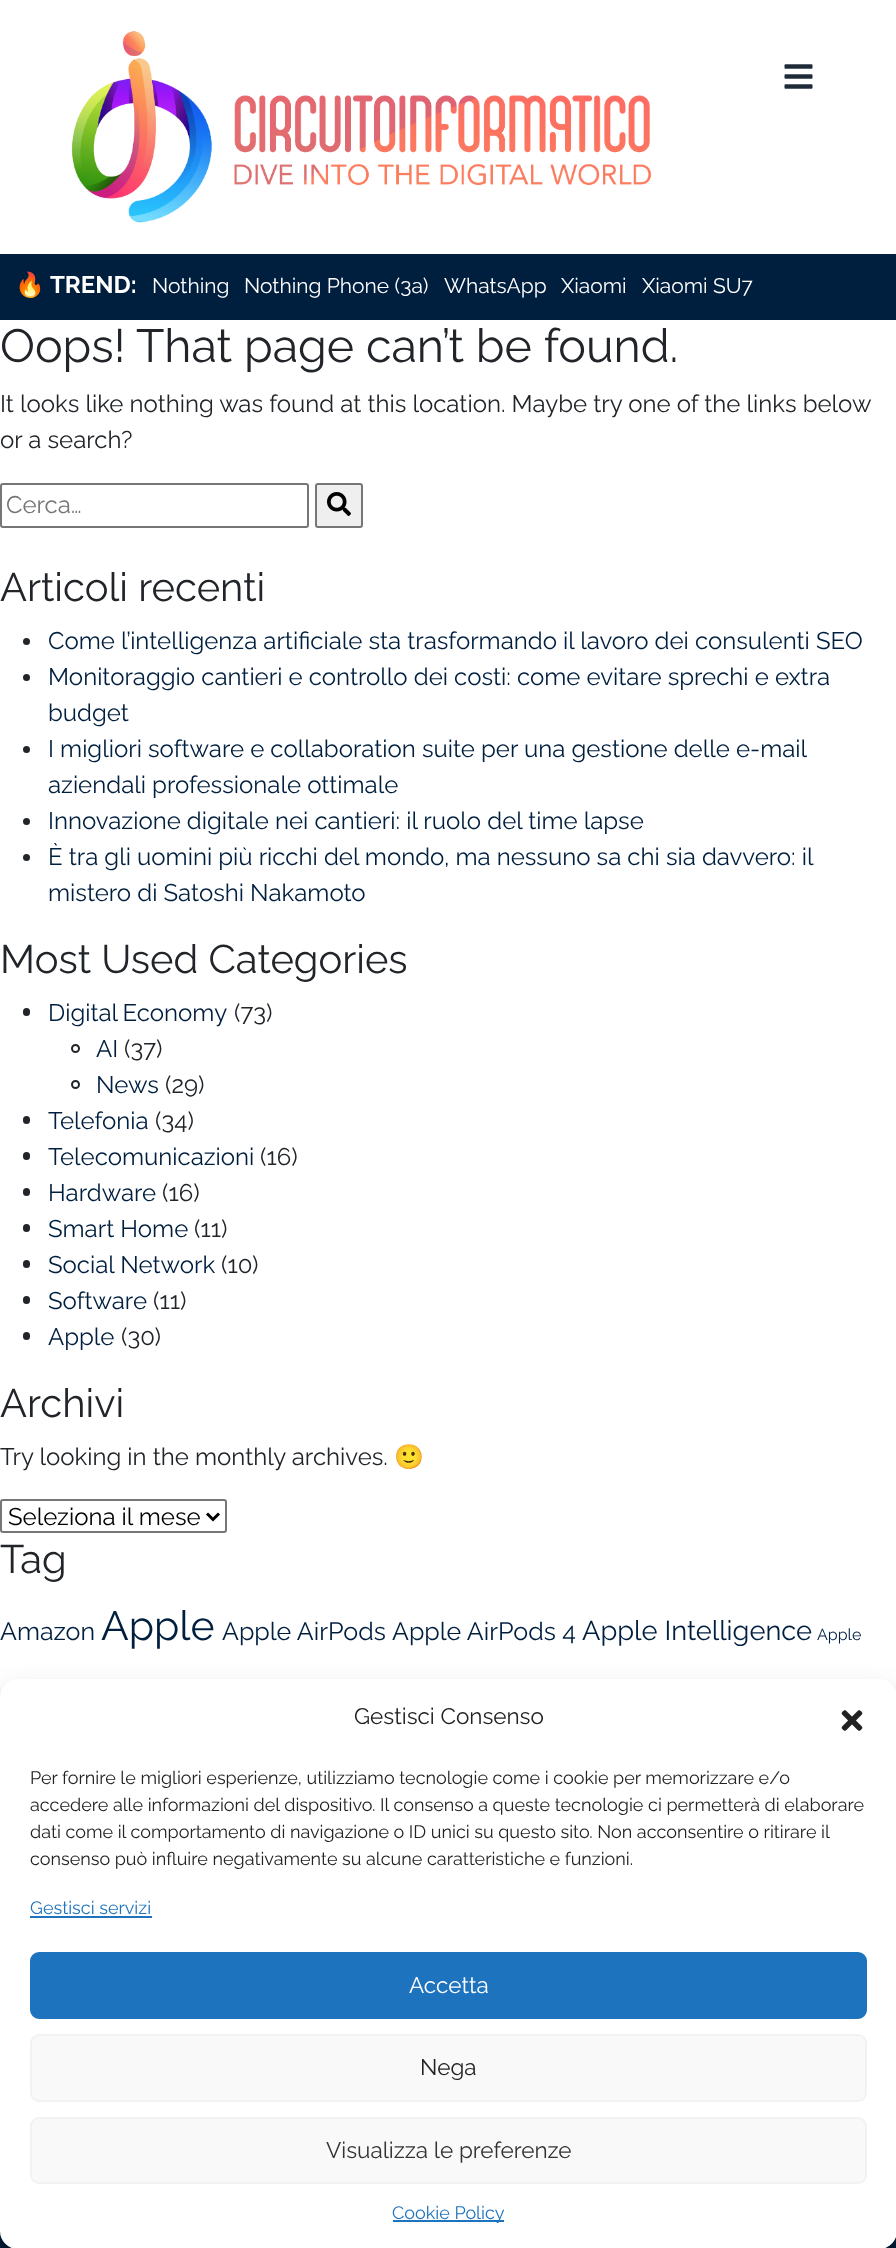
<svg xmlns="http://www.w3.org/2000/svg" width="896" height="2248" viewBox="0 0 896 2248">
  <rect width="100%" height="100%" fill="#fff"/>
  <image x="71" y="31" width="581" height="192" href="img/1.png"/>
  <image x="784" y="64" width="29" height="25" href="img/2.png"/>
  <path d="M0 254h896v66H0z" fill="#001f3f"/>
  <rect x="1" y="484" width="307" height="43" rx="2" fill="none" stroke="#767676" stroke-width="2"/>
  <rect x="316" y="484" width="46" height="43" rx="2" fill="#efefef" stroke="#767676" stroke-width="2"/>
  <image x="327" y="492" width="24" height="24" href="img/3.png"/>
  <circle cx="26.5" cy="641.5" r="3.5" fill="#212529"/>
  <circle cx="26.5" cy="677.5" r="3.5" fill="#212529"/>
  <circle cx="26.5" cy="749.5" r="3.5" fill="#212529"/>
  <circle cx="26.5" cy="821.5" r="3.5" fill="#212529"/>
  <circle cx="26.5" cy="857.5" r="3.5" fill="#212529"/>
  <rect x="23" y="1008" width="7" height="8" rx="3.5" fill="#212529"/>
  <circle cx="75.5" cy="1048.5" r="3.5" fill="none" stroke="#212529" stroke-width="2"/>
  <circle cx="75.5" cy="1084.5" r="3.5" fill="none" stroke="#212529" stroke-width="2"/>
  <rect x="23" y="1116" width="7" height="8" rx="3.5" fill="#212529"/>
  <rect x="23" y="1152" width="7" height="8" rx="3.5" fill="#212529"/>
  <rect x="23" y="1188" width="7" height="8" rx="3.5" fill="#212529"/>
  <rect x="23" y="1224" width="7" height="8" rx="3.5" fill="#212529"/>
  <rect x="23" y="1260" width="7" height="8" rx="3.5" fill="#212529"/>
  <rect x="23" y="1296" width="7" height="8" rx="3.5" fill="#212529"/>
  <rect x="23" y="1332" width="7" height="8" rx="3.5" fill="#212529"/>
  <rect x="1" y="1500" width="225" height="32" rx="2" fill="none" stroke="#767676" stroke-width="2"/>
  <path d="M207 1513.5L213 1519.5L219 1513.5" fill="none" stroke="#000" stroke-width="3"/>
  <path d="M0 2231h896v17H0z" fill="#001f3f"/>
  <rect y="1688" width="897" height="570" rx="18" fill="#0000003b" filter="blur(4.5px)"/>
  <rect y="1694" width="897" height="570" rx="18" fill="#00000030" filter="blur(15px)"/>
  <rect y="1679" width="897" height="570" rx="18" fill="#fff"/>
  <image x="841" y="1710" width="22" height="21" href="img/4.png"/>
  <path d="M30 1916h122v2H30z" fill="#1e73be"/>
  <rect x="31" y="1953" width="835" height="65" rx="8" fill="#1e73be" stroke="#1e73be" stroke-width="2"/>
  <rect x="31" y="2035" width="835" height="66" rx="8" fill="#f9f9f9" stroke="#f2f2f2" stroke-width="2"/>
  <rect x="31" y="2118" width="835" height="65" rx="8" fill="#f9f9f9" stroke="#f2f2f2" stroke-width="2"/>
  <path d="M393 2220h111v2H393z" fill="#1e73be"/>
  <text x="15" y="293" font-family="Noto Color Emoji" font-size="24" font-weight="bold" fill="#fff">🔥</text>
  <text x="50" y="293" font-family="Raleway" font-size="24" font-weight="bold" fill="#fff">TREND:</text>
  <g font-family="Raleway" font-size="21" fill="#fff">
    <text x="152" y="293">Nothing</text>
    <text x="244" y="293">Nothing Phone (3a)</text>
    <text x="444" y="293">WhatsApp</text>
    <text x="561" y="293">Xiaomi</text>
    <text x="642" y="293">Xiaomi SU7</text>
  </g>
  <text x="0" y="362" font-family="Raleway" font-size="46.5" fill="#212529">Oops! That page can’t be found.</text>
  <g font-family="Raleway" font-size="24" fill="#212529">
    <text x="0" y="412">It looks like nothing was found at this location. Maybe try one of the links below</text>
    <text x="0" y="448">or a search?</text>
  </g>
  <text x="6" y="513" font-family="Raleway" font-size="24" fill="#757575">Cerca…</text>
  <text x="0" y="601" font-family="Raleway" font-size="39.9" fill="#212529">Articoli recenti</text>
  <g font-family="Raleway" font-size="24" fill="#001f3f">
    <text x="48" y="649">Come l’intelligenza artificiale sta trasformando il lavoro dei consulenti SEO</text>
    <text x="48" y="685">Monitoraggio cantieri e controllo dei costi: come evitare sprechi e extra</text>
    <text x="48" y="721">budget</text>
    <text x="48" y="757">I migliori software e collaboration suite per una gestione delle e-mail</text>
    <text x="48" y="793">aziendali professionale ottimale</text>
    <text x="48" y="829">Innovazione digitale nei cantieri: il ruolo del time lapse</text>
    <text x="48" y="865">È tra gli uomini più ricchi del mondo, ma nessuno sa chi sia davvero: il</text>
    <text x="48" y="901">mistero di Satoshi Nakamoto</text>
  </g>
  <text x="0" y="973" font-family="Raleway" font-size="39.9" fill="#212529">Most Used Categories</text>
  <text x="48" y="1021" word-spacing="-1" font-family="Raleway" font-size="24" fill="#001f3f">Digital Economy</text>
  <text x="234" y="1021" font-family="Raleway" font-size="24" fill="#212529">(73)</text>
  <text x="96" y="1057" font-family="Raleway" font-size="24" fill="#001f3f">AI</text>
  <text x="124" y="1057" font-family="Raleway" font-size="24" fill="#212529">(37)</text>
  <text x="96" y="1093" font-family="Raleway" font-size="24" fill="#001f3f">News</text>
  <text x="165" y="1093" font-family="Raleway" font-size="24" fill="#212529">(29)</text>
  <text x="48" y="1129" font-family="Raleway" font-size="24" fill="#001f3f">Telefonia</text>
  <text x="155" y="1129" font-family="Raleway" font-size="24" fill="#212529">(34)</text>
  <text x="48" y="1165" font-family="Raleway" font-size="24" fill="#001f3f">Telecomunicazioni</text>
  <text x="260" y="1165" font-family="Raleway" font-size="24" fill="#212529">(16)</text>
  <text x="48" y="1201" font-family="Raleway" font-size="24" fill="#001f3f">Hardware</text>
  <text x="162" y="1201" font-family="Raleway" font-size="24" fill="#212529">(16)</text>
  <text x="48" y="1237" font-family="Raleway" font-size="24" fill="#001f3f">Smart Home</text>
  <text x="194" y="1237" font-family="Raleway" font-size="24" fill="#212529">(11)</text>
  <text x="48" y="1273" font-family="Raleway" font-size="24" fill="#001f3f">Social Network</text>
  <text x="221" y="1273" font-family="Raleway" font-size="24" fill="#212529">(10)</text>
  <text x="48" y="1309" font-family="Raleway" font-size="24" fill="#001f3f">Software</text>
  <text x="153" y="1309" font-family="Raleway" font-size="24" fill="#212529">(11)</text>
  <text x="48" y="1345" font-family="Raleway" font-size="24" fill="#001f3f">Apple</text>
  <text x="121" y="1345" font-family="Raleway" font-size="24" fill="#212529">(30)</text>
  <text x="0" y="1417" font-family="Raleway" font-size="39.9" fill="#212529">Archivi</text>
  <text x="0" y="1465" font-family="Raleway" font-size="24" fill="#212529">Try looking in the monthly archives.</text>
  <text x="394" y="1465" font-family="Noto Color Emoji" font-size="24" fill="#212529">🙂</text>
  <text x="8" y="1525" font-family="Raleway" font-size="24" fill="#000">Seleziona il mese</text>
  <text x="0" y="1573" font-family="Raleway" font-size="39.9" fill="#212529">Tag</text>
  <text x="0" y="1640" font-family="Raleway" font-size="25" fill="#001f3f">Amazon</text>
  <text x="101" y="1640" font-family="Raleway" font-size="41" fill="#001f3f">Apple</text>
  <g font-family="Raleway" font-size="25" fill="#001f3f">
    <text x="222" y="1640">Apple AirPods</text>
    <text x="392" y="1640">Apple AirPods 4</text>
  </g>
  <text x="582" y="1640" font-family="Raleway" font-size="27.25" fill="#001f3f">Apple Intelligence</text>
  <text x="817" y="1640" font-family="Raleway" font-size="16" fill="#001f3f">Apple</text>
  <text x="354" y="1724" font-family="Raleway" font-size="22.5" fill="#222">Gestisci Consenso</text>
  <g font-family="Raleway" font-size="18" fill="#222">
    <text x="30" y="1784">Per fornire le migliori esperienze, utilizziamo tecnologie come i cookie per memorizzare e/o</text>
    <text x="30" y="1811">accedere alle informazioni del dispositivo. Il consenso a queste tecnologie ci permetterà di elaborare</text>
    <text x="30" y="1838">dati come il comportamento di navigazione o ID unici su questo sito. Non acconsentire o ritirare il</text>
    <text x="30" y="1865">consenso può influire negativamente su alcune caratteristiche e funzioni.</text>
  </g>
  <text x="30" y="1914" font-family="Raleway" font-size="18" fill="#1e73be">Gestisci servizi</text>
  <text x="409" y="1993" font-family="Raleway" font-size="22.5" fill="#fff">Accetta</text>
  <text x="420" y="2075" font-family="Raleway" font-size="22.5" fill="#222">Nega</text>
  <text x="326" y="2158" font-family="Raleway" font-size="22.5" fill="#333">Visualizza le preferenze</text>
  <text x="392" y="2219" font-family="Raleway" font-size="18" fill="#1e73be">Cookie Policy</text>
</svg>
